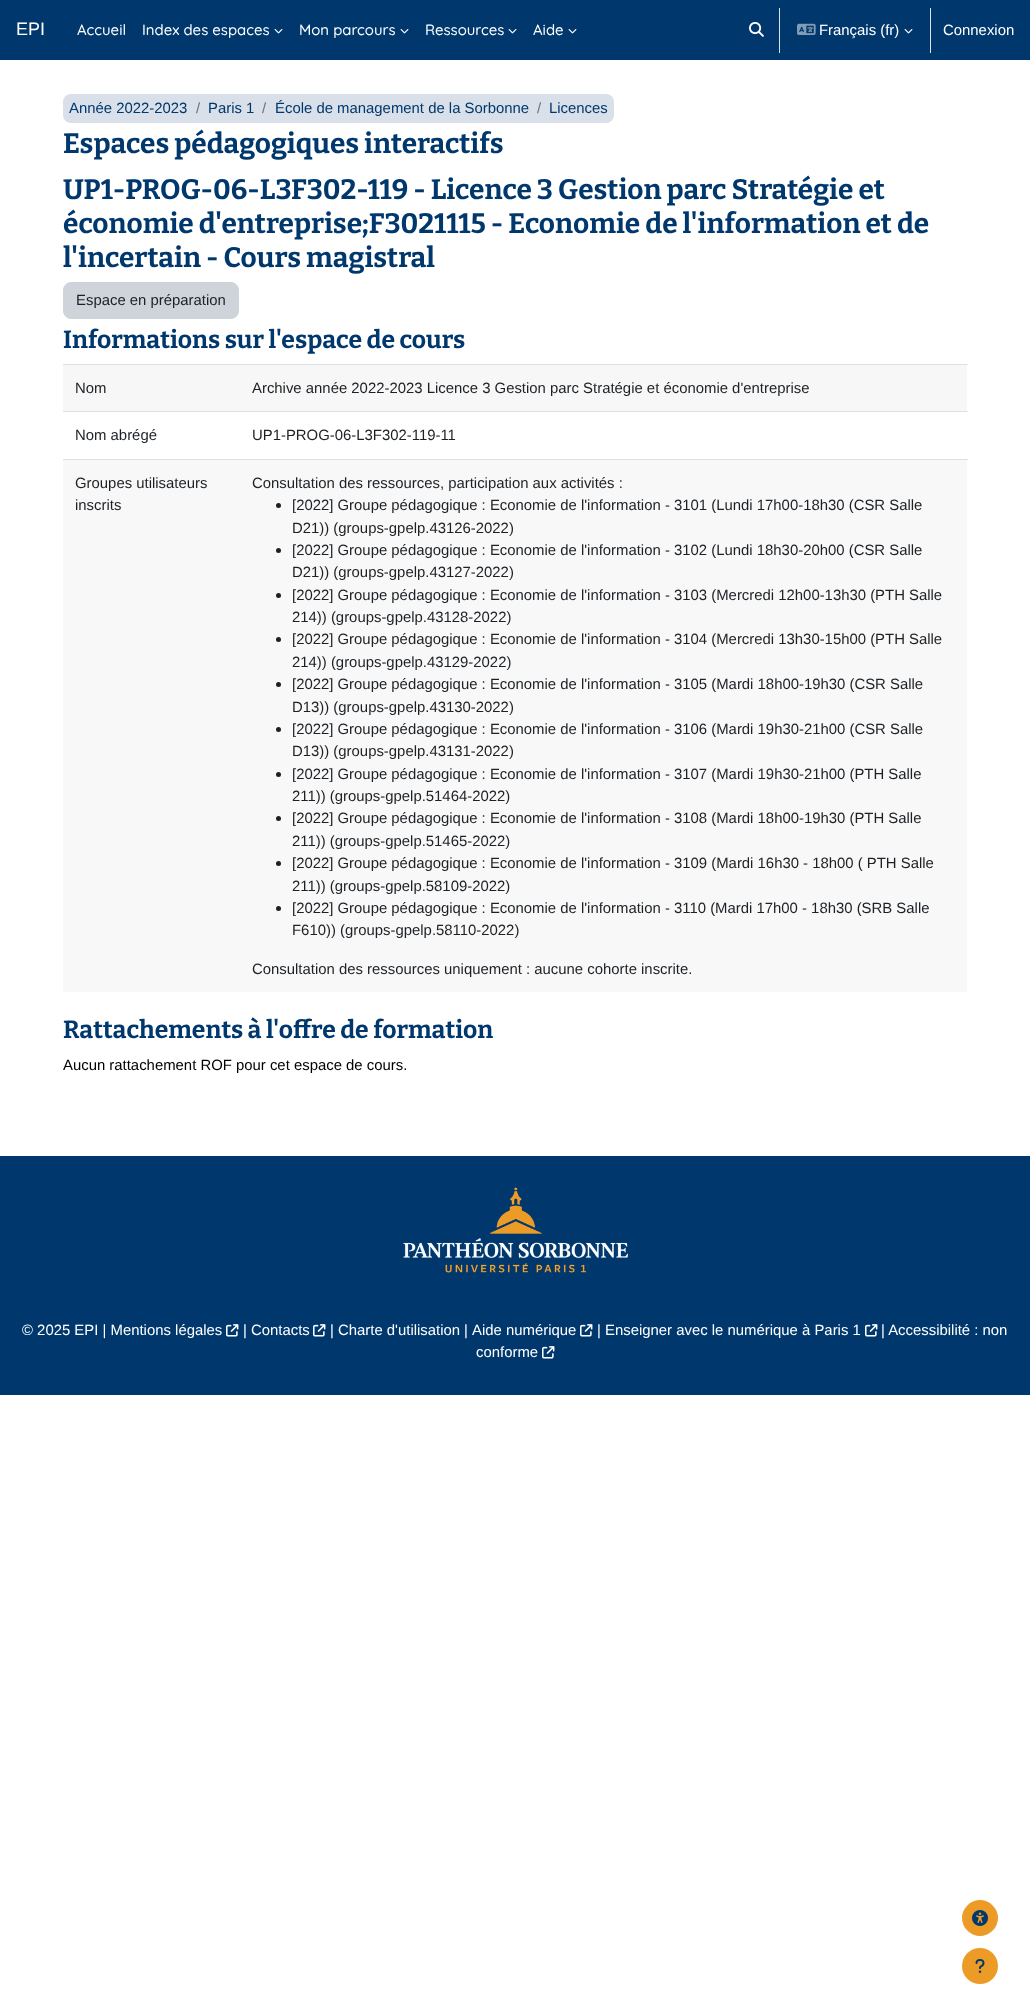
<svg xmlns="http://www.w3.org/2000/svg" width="1030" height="2016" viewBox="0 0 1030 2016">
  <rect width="100%" height="100%" fill="#fff"/>
  <path d="M0 0h1030v60H0z" fill="#00386e"/>
  <image x="274" y="29" width="9" height="5" href="img/1.png"/>
  <image x="400" y="29" width="9" height="5" href="img/1.png"/>
  <image x="508" y="29" width="9" height="5" href="img/1.png"/>
  <image x="568" y="29" width="9" height="5" href="img/1.png"/>
  <image x="749" y="22" width="15" height="15" href="img/2.png"/>
  <path d="M779 8h1v45H779z" fill="#dee2e6"/>
  <image x="797" y="23" width="19" height="12" href="img/3.png"/>
  <image x="904" y="29" width="9" height="5" href="img/1.png"/>
  <path d="M930 8h1v45H930z" fill="#dee2e6"/>
  <rect x="63" y="94" width="551" height="29" rx="8" fill="#d9e0e9"/>
  <rect x="63.5" y="282.5" width="175" height="36" rx="7.5" fill="#ced4da" stroke="#ced4da"/>
  <path d="M63 365h904v46H63z" fill="#f7f7f7"/>
  <path d="M63 364h905v1H63z" fill="#dee2e6"/>
  <path d="M63 411h905v1H63z" fill="#dee2e6"/>
  <path d="M63 460h904v532H63z" fill="#f8f8f8"/>
  <path d="M63 459h905v1H63z" fill="#dee2e6"/>
  <circle cx="278.5" cy="505.5" r="2.5" fill="#1d2125"/>
  <circle cx="278.5" cy="550.5" r="2.5" fill="#1d2125"/>
  <circle cx="278.5" cy="595.5" r="2.5" fill="#1d2125"/>
  <circle cx="278.5" cy="639.5" r="2.5" fill="#1d2125"/>
  <circle cx="278.5" cy="684.5" r="2.5" fill="#1d2125"/>
  <circle cx="278.5" cy="729.5" r="2.5" fill="#1d2125"/>
  <circle cx="278.5" cy="774.5" r="2.5" fill="#1d2125"/>
  <circle cx="278.5" cy="818.5" r="2.5" fill="#1d2125"/>
  <circle cx="278.5" cy="863.5" r="2.5" fill="#1d2125"/>
  <circle cx="278.5" cy="908.5" r="2.5" fill="#1d2125"/>
  <circle cx="980" cy="1918" r="17.5" fill="#ed9b27" stroke="#ed9b27"/>
  <image x="972" y="1910" width="16" height="16" href="img/4.png"/>
  <path d="M0 1156h1030v239H0z" fill="#00386e"/>
  <image x="403" y="1187" width="225" height="86" href="img/5.png"/>
  <image x="226" y="1324" width="13" height="13" href="img/6.png"/>
  <image x="313" y="1324" width="13" height="13" href="img/6.png"/>
  <image x="580" y="1324" width="13" height="13" href="img/6.png"/>
  <image x="865" y="1324" width="13" height="13" href="img/6.png"/>
  <image x="542" y="1346" width="13" height="13" href="img/6.png"/>
  <circle cx="980" cy="1966" r="18" fill="#ed9b27"/>
  <image x="975" y="1959" width="10" height="14" href="img/7.png"/>
  <text x="16" y="35" font-family="Liberation Sans" font-size="18" fill="#fff">EPI</text>
  <g font-family="Quicksand" font-size="14.9" font-weight="500" fill="#fff">
    <text x="77" y="35">Accueil</text>
    <text x="142" y="35">Index des espaces</text>
    <text x="299" y="35">Mon parcours</text>
    <text x="425" y="35">Ressources</text>
    <text x="533" y="35">Aide</text>
  </g>
  <g font-family="Liberation Sans" font-size="14.9" fill="#fff">
    <text x="819" y="35">Français (fr)</text>
    <text x="943" y="35">Connexion</text>
  </g>
  <text x="69" y="113" font-family="Liberation Sans" font-size="14.9" fill="#00386e">Année 2022-2023</text>
  <text x="196" y="113" font-family="Liberation Sans" font-size="14.9" fill="#6a737b">/</text>
  <text x="208" y="113" font-family="Liberation Sans" font-size="14.9" fill="#00386e">Paris 1</text>
  <text x="262" y="113" font-family="Liberation Sans" font-size="14.9" fill="#6a737b">/</text>
  <text x="275" y="113" font-family="Liberation Sans" font-size="14.9" fill="#00386e">École de management de la Sorbonne</text>
  <text x="537" y="113" font-family="Liberation Sans" font-size="14.9" fill="#6a737b">/</text>
  <text x="549" y="113" font-family="Liberation Sans" font-size="14.9" fill="#00386e">Licences</text>
  <g font-family="Bitter" font-size="28" font-weight="bold" fill="#00386e">
    <text x="63" y="153">Espaces pédagogiques interactifs</text>
    <text x="63" y="199">UP1-PROG-06-L3F302-119 - Licence 3 Gestion parc Stratégie et</text>
    <text x="63" y="233">économie d'entreprise;F3021115 - Economie de l'information et de</text>
    <text x="63" y="267">l'incertain - Cours magistral</text>
  </g>
  <text x="76" y="305" font-family="Liberation Sans" font-size="14.9" fill="#1d2125">Espace en préparation</text>
  <text x="63" y="348" font-family="Bitter" font-size="24.75" font-weight="bold" fill="#00386e">Informations sur l'espace de cours</text>
  <g font-family="Liberation Sans" font-size="14.9" fill="#1d2125">
    <text x="75" y="393">Nom</text>
    <text x="252" y="393">Archive année 2022-2023 Licence 3 Gestion parc Stratégie et économie d'entreprise</text>
    <text x="75" y="440">Nom abrégé</text>
    <text x="252" y="440">UP1-PROG-06-L3F302-119-11</text>
    <text x="75" y="488">Groupes utilisateurs</text>
    <text x="75" y="510">inscrits</text>
    <text x="252" y="488">Consultation des ressources, participation aux activités :</text>
    <text x="292" y="510">[2022] Groupe pédagogique : Economie de l'information - 3101 (Lundi 17h00-18h30 (CSR Salle</text>
    <text x="292" y="533">D21)) (groups-gpelp.43126-2022)</text>
    <text x="292" y="555">[2022] Groupe pédagogique : Economie de l'information - 3102 (Lundi 18h30-20h00 (CSR Salle</text>
    <text x="292" y="577">D21)) (groups-gpelp.43127-2022)</text>
    <text x="292" y="600">[2022] Groupe pédagogique : Economie de l'information - 3103 (Mercredi 12h00-13h30 (PTH Salle</text>
    <text x="292" y="622">214)) (groups-gpelp.43128-2022)</text>
    <text x="292" y="644">[2022] Groupe pédagogique : Economie de l'information - 3104 (Mercredi 13h30-15h00 (PTH Salle</text>
    <text x="292" y="667">214)) (groups-gpelp.43129-2022)</text>
    <text x="292" y="689">[2022] Groupe pédagogique : Economie de l'information - 3105 (Mardi 18h00-19h30 (CSR Salle</text>
    <text x="292" y="712">D13)) (groups-gpelp.43130-2022)</text>
    <text x="292" y="734">[2022] Groupe pédagogique : Economie de l'information - 3106 (Mardi 19h30-21h00 (CSR Salle</text>
    <text x="292" y="756">D13)) (groups-gpelp.43131-2022)</text>
    <text x="292" y="779">[2022] Groupe pédagogique : Economie de l'information - 3107 (Mardi 19h30-21h00 (PTH Salle</text>
    <text x="292" y="801">211)) (groups-gpelp.51464-2022)</text>
    <text x="292" y="823">[2022] Groupe pédagogique : Economie de l'information - 3108 (Mardi 18h00-19h30 (PTH Salle</text>
    <text x="292" y="846">211)) (groups-gpelp.51465-2022)</text>
    <text x="292" y="868">[2022] Groupe pédagogique : Economie de l'information - 3109 (Mardi 16h30 - 18h00 ( PTH Salle</text>
    <text x="292" y="891">211)) (groups-gpelp.58109-2022)</text>
    <text x="292" y="913">[2022] Groupe pédagogique : Economie de l'information - 3110 (Mardi 17h00 - 18h30 (SRB Salle</text>
    <text x="292" y="935">F610)) (groups-gpelp.58110-2022)</text>
    <text x="252" y="974">Consultation des ressources uniquement : aucune cohorte inscrite.</text>
  </g>
  <text x="63" y="1038" font-family="Bitter" font-size="24.75" font-weight="bold" fill="#00386e">Rattachements à l'offre de formation</text>
  <text x="63" y="1070" font-family="Liberation Sans" font-size="14.9" fill="#000">Aucun rattachement ROF pour cet espace de cours.</text>
  <g font-family="Liberation Sans" font-size="14.9" fill="#fff">
    <text x="22" y="1335">© 2025 EPI | Mentions légales</text>
    <text x="243" y="1335">| Contacts</text>
    <text x="330" y="1335">| Charte d'utilisation</text>
    <text x="464" y="1335">|</text>
    <text x="472" y="1335">Aide numérique</text>
    <text x="597" y="1335">| Enseigner avec le numérique à Paris 1</text>
    <text x="881" y="1335">| Accessibilité : non</text>
    <text x="476" y="1357">conforme</text>
  </g>
</svg>
